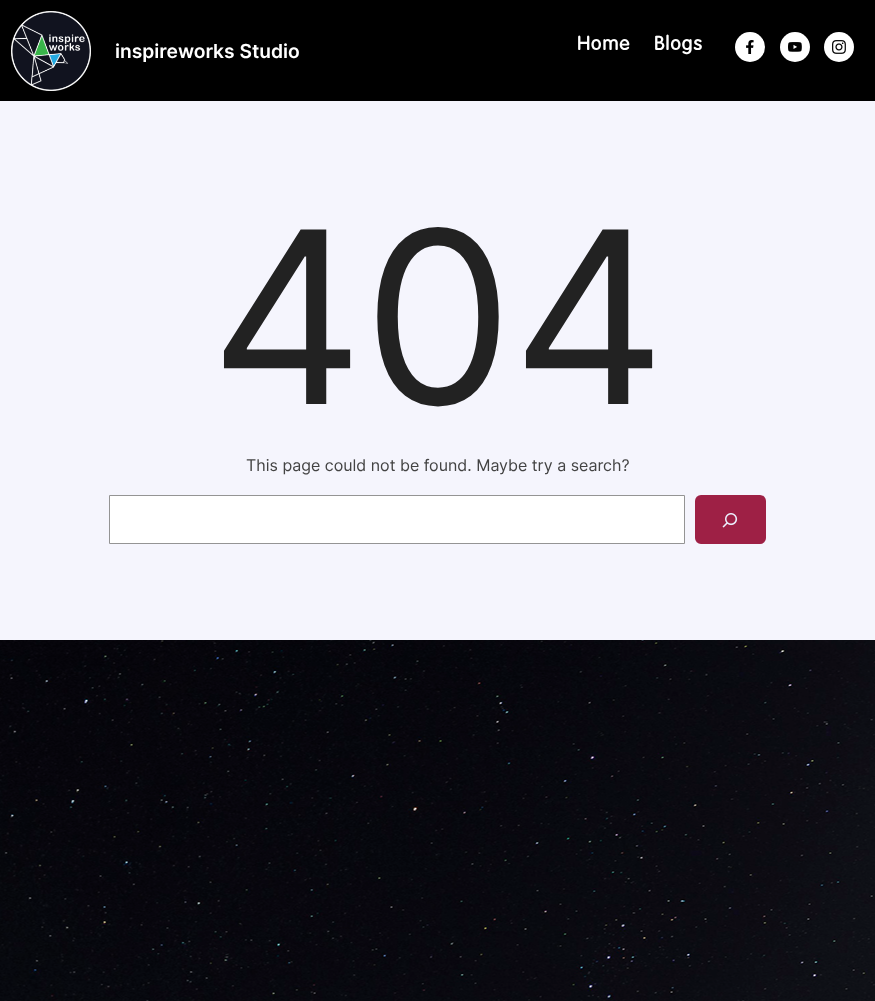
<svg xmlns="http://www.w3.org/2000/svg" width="875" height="1001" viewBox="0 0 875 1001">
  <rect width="100%" height="100%" fill="#fff"/>
  <image x="0" y="640" width="875" height="361" href="img/1.png"/>
  <path d="M0 0h875v101H0z" fill="#000"/>
  <image x="11" y="11" width="80" height="80" href="img/2.png"/>
  <circle cx="750" cy="47" r="15" fill="#fff"/>
  <image x="746" y="40" width="8" height="14" href="img/3.png"/>
  <circle cx="795" cy="47" r="15" fill="#fff"/>
  <image x="788" y="42" width="14" height="10" href="img/4.png"/>
  <circle cx="839" cy="47" r="15" fill="#fff"/>
  <image x="832" y="40" width="14" height="14" href="img/5.png"/>
  <path d="M0 101h875v539H0z" fill="#f5f5fd"/>
  <path d="M109.5 495.5h575v48H109.5z" fill="#fff" stroke="#949494"/>
  <rect x="695" y="495" width="71" height="49" rx="6" fill="#9e2045"/>
  <image x="722" y="513" width="16" height="15" href="img/6.png"/>
  <text x="115" y="58" font-family="Inter" font-size="19.25" font-weight="600" fill="#fff">inspireworks Studio</text>
  <g font-family="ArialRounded" font-size="19.25" font-weight="bold" letter-spacing="1" fill="#fff">
    <text x="577" y="50">Home</text>
    <text x="654" y="50">Blogs</text>
  </g>
  <text x="210" y="404" font-family="Inter" font-size="240" letter-spacing="-1" fill="#222">404</text>
  <text x="246" y="471" font-family="Inter" font-size="16" fill="#434343">This page could not be found. Maybe try a search?</text>
</svg>
